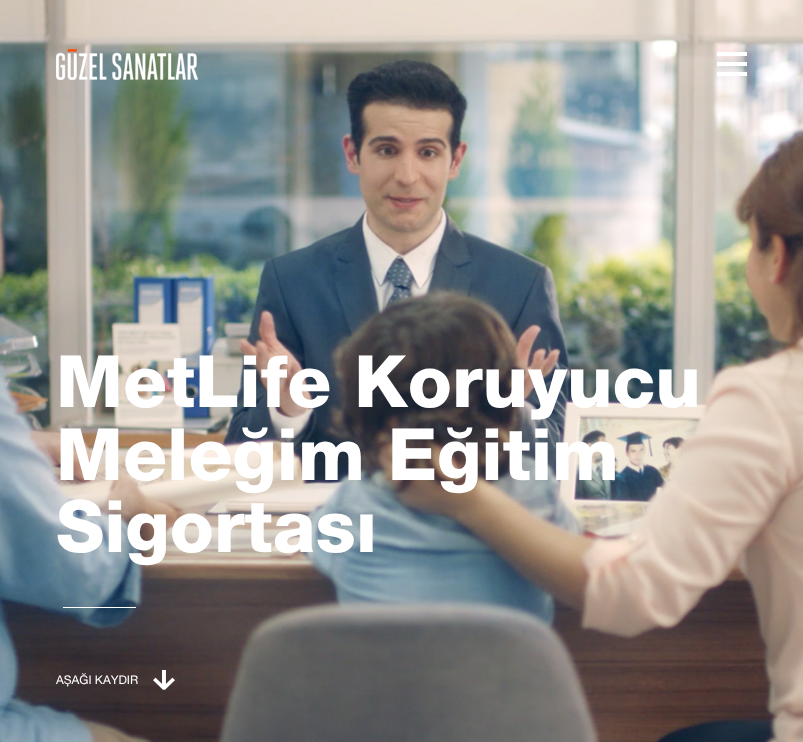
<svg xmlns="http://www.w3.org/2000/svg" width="803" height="742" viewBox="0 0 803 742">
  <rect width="100%" height="100%" fill="#fff"/>
  <image x="0" y="0" width="803" height="742" href="img/2.png"/>
  <image x="56" y="49" width="142" height="31" href="img/1.png"/>
  <path d="M717 62h30v4H717z" fill="#fff"/>
  <path d="M717 52h30v4H717z" fill="#fff"/>
  <path d="M717 72h30v4H717z" fill="#fff"/>
  <path d="M63 607h73v1H63z" fill="#fff"/>
  <image x="153" y="670" width="22" height="20" href="img/3.png"/>
  <g font-family="Helvetica Neue" font-size="72.25" font-weight="bold" fill="#fff">
    <text x="56" y="407">MetLife Koruyucu</text>
    <text x="56" y="480">Meleğim Eğitim</text>
    <text x="56" y="552">Sigortası</text>
  </g>
  <text x="56" y="684" font-family="Helvetica Neue" font-size="12" fill="#fff">AŞAĞI KAYDIR</text>
</svg>
